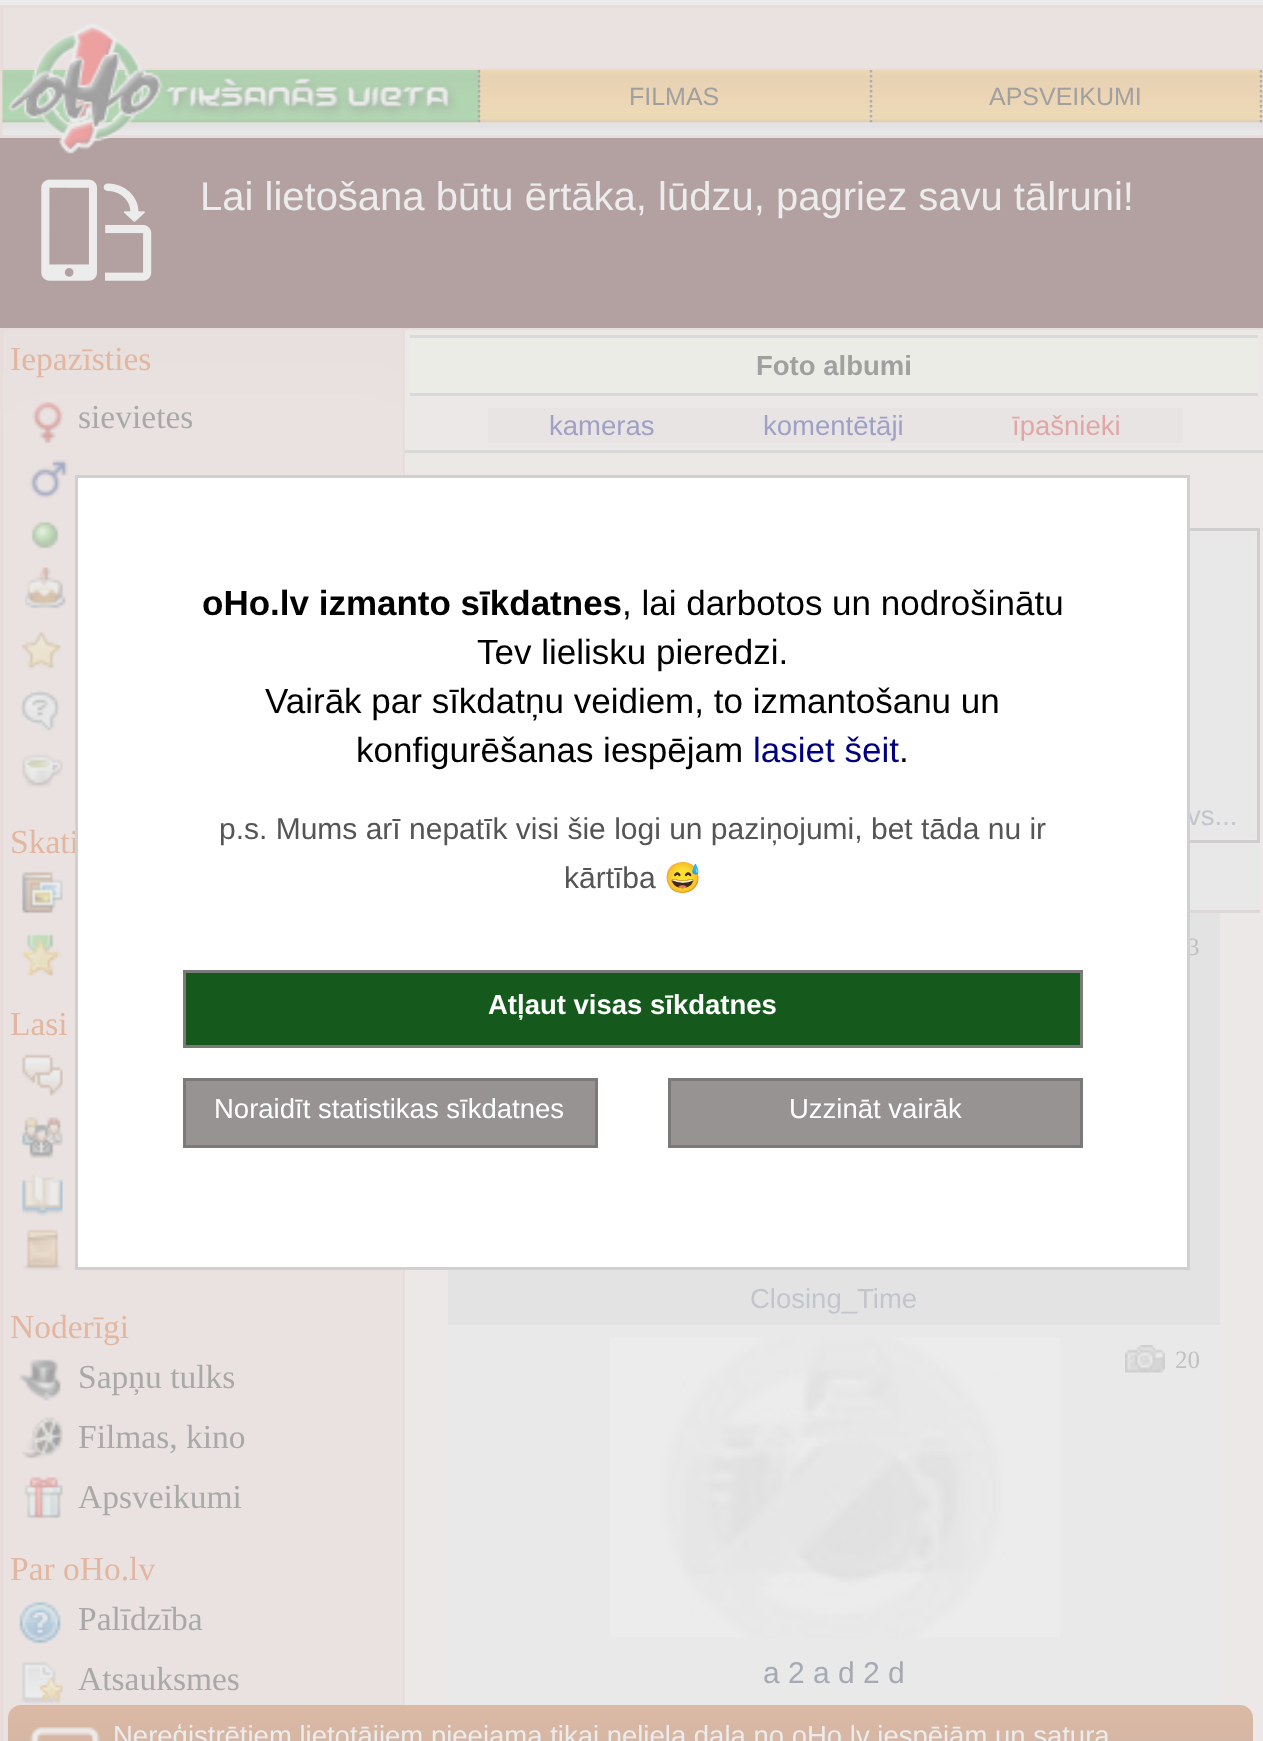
<svg xmlns="http://www.w3.org/2000/svg" width="1263" height="1741" viewBox="0 0 1263 1741">
  <defs>
    <linearGradient id="g1" gradientUnits="userSpaceOnUse" x1="630" y1="1705" x2="630" y2="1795"><stop offset="0" stop-color="#dbb9a5"/><stop offset="1" stop-color="#ceb3a3"/></linearGradient>
  </defs>
  <rect width="100%" height="100%" fill="#ececec"/>
  <path d="M0 5h1263v133H0z" fill="#e9dddb"/>
  <path d="M3 8h1260v60H3z" fill="#eae2e1"/>
  <path d="M3 70h1260v65H3z" fill="#eae2e1"/>
  <image x="2" y="70" width="1261" height="53" href="img/2.png"/>
  <image x="2" y="70" width="478" height="53" href="img/3.png"/>
  <path d="M479 70V122.5" fill="none" stroke="#aeaeae" stroke-width="2.5" stroke-dasharray="2.5 2.5"/>
  <path d="M871 70V122.5" fill="none" stroke="#aeaeae" stroke-width="2.5" stroke-dasharray="2.5 2.5"/>
  <path d="M1261 70V122.5" fill="none" stroke="#aeaeae" stroke-width="2.5" stroke-dasharray="2.5 2.5"/>
  <image x="2" y="122" width="1261" height="13" href="img/4.png"/>
  <path d="M0 138h1263v190H0z" fill="#b3a0a0"/>
  <image x="7" y="23" width="450" height="131" href="img/1.png"/>
  <image x="41" y="179" width="111" height="102" href="img/5.png"/>
  <path d="M0 328h1263v1413H0z" fill="#e9dddb"/>
  <path d="M3 330h400v1411H3z" fill="#eae2e1"/>
  <image x="2" y="330" width="401" height="104" href="img/6.png"/>
  <image x="32" y="401" width="32" height="43" href="img/7.png"/>
  <image x="29" y="459" width="40" height="40" href="img/8.png"/>
  <image x="31" y="521" width="28" height="28" href="img/9.png"/>
  <image x="25" y="567" width="41" height="42" href="img/10.png"/>
  <image x="21" y="631" width="40" height="38" href="img/11.png"/>
  <image x="19" y="689" width="42" height="42" href="img/12.png"/>
  <image x="21" y="754" width="42" height="34" href="img/13.png"/>
  <image x="21" y="871" width="42" height="43" href="img/14.png"/>
  <image x="21" y="934" width="40" height="42" href="img/15.png"/>
  <image x="21" y="1054" width="42" height="42" href="img/16.png"/>
  <image x="21" y="1116" width="42" height="43" href="img/17.png"/>
  <image x="21" y="1174" width="42" height="42" href="img/18.png"/>
  <image x="22" y="1229" width="41" height="42" href="img/19.png"/>
  <image x="19" y="1359" width="42" height="42" href="img/20.png"/>
  <image x="22" y="1416" width="41" height="43" href="img/21.png"/>
  <image x="24" y="1476" width="39" height="43" href="img/22.png"/>
  <image x="19" y="1601" width="42" height="43" href="img/23.png"/>
  <image x="21" y="1661" width="42" height="43" href="img/24.png"/>
  <path d="M405 330h858v1411H405z" fill="#ece8e8"/>
  <path d="M410 338h848v55H410z" fill="#ecece6"/>
  <path d="M410 335h848v3H410z" fill="#d9d9d9"/>
  <path d="M410 393h848v3H410z" fill="#d9d9d9"/>
  <path d="M405 450h858v3H405z" fill="#d9d9d9"/>
  <path d="M488 408h695v35H488z" fill="#e9e4e4"/>
  <path d="M409.5 529.5h849v312H409.5z" fill="none" stroke="#cecece" stroke-width="3"/>
  <path d="M1190 533h65v305H1190z" fill="#e8e8e8"/>
  <path d="M1190 845h70v65H1190z" fill="#e9e8e9"/>
  <path d="M1190 910h70v3H1190z" fill="#ddd7d9"/>
  <path d="M448 913h772v412H448z" fill="#e3e3e3"/>
  <path d="M448 1325h772v380H448z" fill="#e9e9e9"/>
  <image x="610" y="1337" width="450" height="301" href="img/25.png"/>
  <image x="1125" y="1345" width="40" height="28" href="img/26.png"/>
  <rect x="8" y="1705" width="1245" height="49" rx="13" fill="url(#g1)"/>
  <image x="29" y="1726" width="72" height="15" href="img/27.png"/>
  <g font-family="Liberation Sans" font-size="25" fill="#a0a0a0">
    <text x="629" y="105">FILMAS</text>
    <text x="989" y="105">APSVEIKUMI</text>
  </g>
  <text x="200" y="210" font-family="Liberation Sans" font-size="40" fill="#ececec">Lai lietošana būtu ērtāka, lūdzu, pagriez savu tālruni!</text>
  <text x="10" y="370" font-family="Liberation Serif" font-size="33.5" fill="#e3b6a0">Iepazīsties</text>
  <text x="78" y="428" font-family="Liberation Serif" font-size="33.5" fill="#a9a9a9">sievietes</text>
  <g font-family="Liberation Serif" font-size="33.5" fill="#e3b6a0">
    <text x="10" y="853">Skati</text>
    <text x="10" y="1035">Lasi</text>
    <text x="10" y="1338">Noderīgi</text>
  </g>
  <g font-family="Liberation Serif" font-size="33.5" fill="#a9a9a9">
    <text x="78" y="1388">Sapņu tulks</text>
    <text x="78" y="1448">Filmas, kino</text>
    <text x="78" y="1508">Apsveikumi</text>
  </g>
  <text x="10" y="1580" font-family="Liberation Serif" font-size="33.5" fill="#e3b6a0">Par oHo.lv</text>
  <g font-family="Liberation Serif" font-size="33.5" fill="#a9a9a9">
    <text x="78" y="1630">Palīdzība</text>
    <text x="78" y="1690">Atsauksmes</text>
  </g>
  <text x="756" y="375" font-family="Liberation Sans" font-size="27.5" font-weight="bold" fill="#a0a0a0">Foto albumi</text>
  <g font-family="Liberation Sans" font-size="27.5" fill="#a0a0c6">
    <text x="549" y="435">kameras</text>
    <text x="763" y="435">komentētāji</text>
  </g>
  <text x="1012" y="435" font-family="Liberation Sans" font-size="27.5" fill="#e0a7a6">īpašnieki</text>
  <text x="1187" y="825" font-family="Liberation Sans" font-size="27.5" fill="#c2c6cc">vs...</text>
  <text x="1187" y="955" font-family="Liberation Serif" font-size="25" fill="#c1c1c1">3</text>
  <text x="750" y="1308" font-family="Liberation Sans" font-size="27.5" fill="#c2c6cc">Closing_Time</text>
  <text x="1175" y="1368" font-family="Liberation Serif" font-size="25" fill="#c1c1c1">20</text>
  <text x="763" y="1683" font-family="Liberation Sans" font-size="30" fill="#a6aab2">a 2 a d 2 d</text>
  <path d="M76.5 476.5h1112v792H76.5z" fill="#fff" stroke="#d0d0d0" stroke-width="3"/>
  <text x="202" y="615" font-family="Liberation Sans" font-size="35" font-weight="bold" fill="#000">oHo.lv izmanto sīkdatnes</text>
  <g font-family="Liberation Sans" font-size="35" fill="#000">
    <text x="622" y="615">, lai darbotos un nodrošinātu</text>
    <text x="477" y="664">Tev lielisku pieredzi.</text>
    <text x="265" y="713">Vairāk par sīkdatņu veidiem, to izmantošanu un</text>
    <text x="356" y="762">konfigurēšanas iespējam</text>
  </g>
  <text x="753" y="762" font-family="Liberation Sans" font-size="35" fill="#000080">lasiet šeit</text>
  <text x="899" y="762" font-family="Liberation Sans" font-size="35" fill="#000">.</text>
  <g font-family="Liberation Sans" font-size="30" fill="#555">
    <text x="219" y="839">p.s. Mums arī nepatīk visi šie logi un paziņojumi, bet tāda nu ir</text>
    <text x="564" y="888">kārtība</text>
  </g>
  <text x="664" y="888" font-family="Noto Color Emoji" font-size="30" fill="#555">😅</text>
  <path d="M184.5 971.5h897v75H184.5z" fill="#155a1c" stroke="#7b7a79" stroke-width="3"/>
  <text x="488" y="1014" font-family="Liberation Sans" font-size="27.5" font-weight="bold" fill="#fff">Atļaut visas sīkdatnes</text>
  <path d="M184.5 1079.5h412v67H184.5z" fill="#969392" stroke="#7b7a79" stroke-width="3"/>
  <text x="214" y="1118" font-family="Liberation Sans" font-size="27.5" fill="#fff">Noraidīt statistikas sīkdatnes</text>
  <path d="M669.5 1079.5h412v67H669.5z" fill="#969392" stroke="#7b7a79" stroke-width="3"/>
  <text x="789" y="1118" font-family="Liberation Sans" font-size="27.5" fill="#fff">Uzzināt vairāk</text>
  <text x="113" y="1745" font-family="Liberation Sans" font-size="27.5" fill="#ececec">Nereģistrētiem lietotājiem pieejama tikai neliela daļa no oHo.lv iespējām un satura</text>
</svg>
